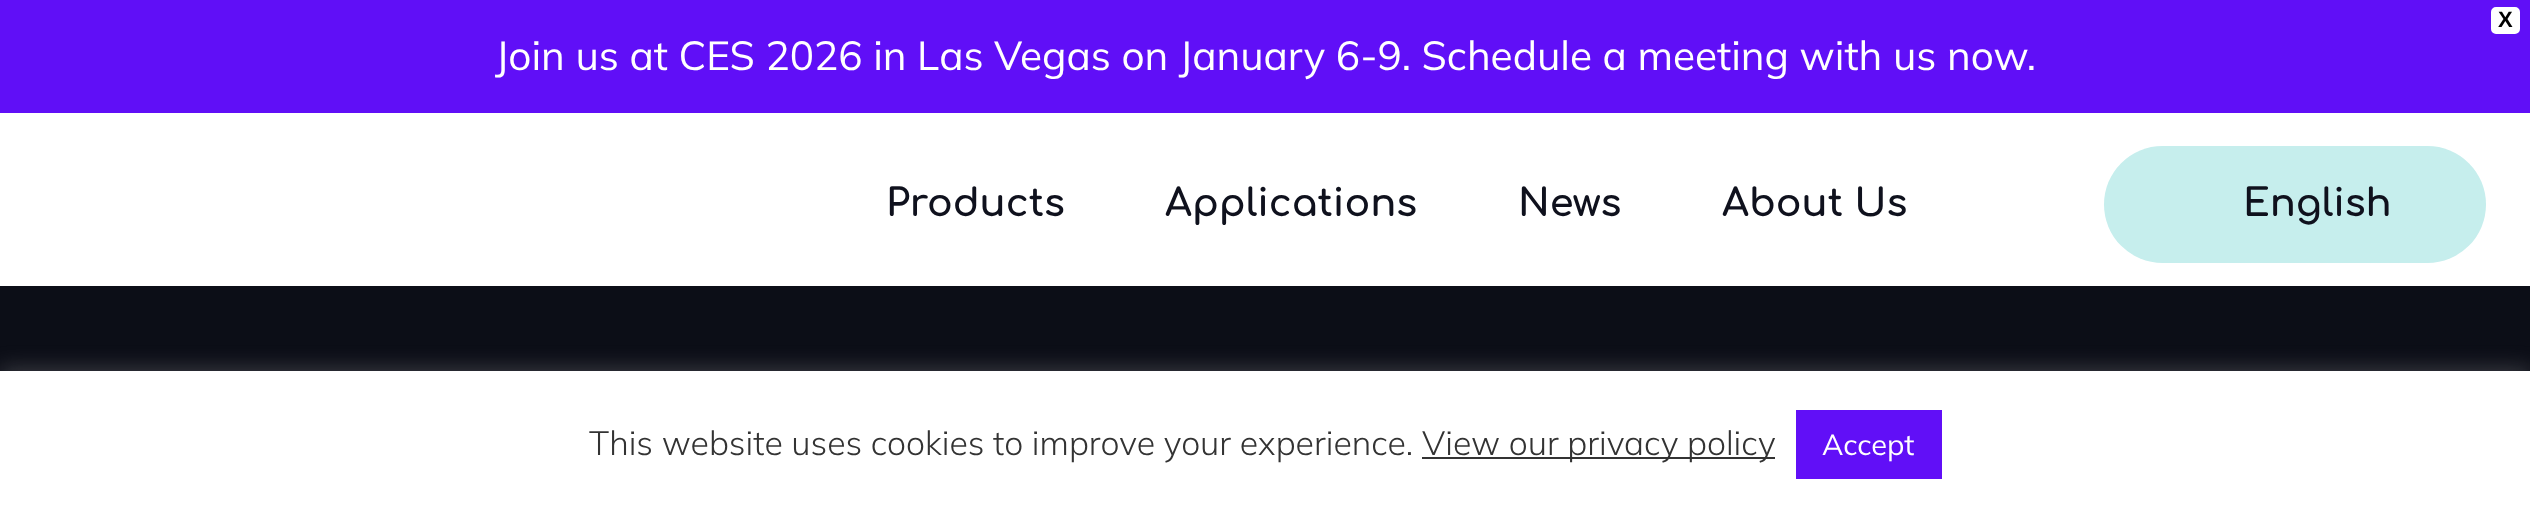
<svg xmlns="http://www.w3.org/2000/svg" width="2530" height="506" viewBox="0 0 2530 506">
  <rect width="100%" height="100%" fill="#fff"/>
  <path d="M0 0h2530v113H0z" fill="#600ff7"/>
  <rect x="2492" y="8" width="27" height="25" rx="4" fill="#fff" stroke="#fff" stroke-width="2"/>
  <rect x="2104" y="146" width="382" height="117" rx="58.5" fill="#c6eeed"/>
  <path d="M0 286h2530v85H0z" fill="#0c0e17"/>
  <path d="M0 369h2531v135H0z" fill="#acabab4d" filter="blur(11px)"/>
  <path d="M0 371h2530v135H0z" fill="#fff"/>
  <path d="M1422 457h353v2H1422z" fill="#333"/>
  <path d="M1796 410h146v69H1796z" fill="#610ff7"/>
  <text x="2498" y="27" font-family="Liberation Sans" font-size="22" font-weight="bold" fill="#000">X</text>
  <text x="495" y="70" font-family="Mulish" font-size="40.5" fill="#fff">Join us at CES 2026 in Las Vegas on January 6-9. Schedule a meeting with us now.</text>
  <g font-family="Comfortaa" font-size="38.25" font-weight="bold" fill="#0f111d">
    <text x="886" y="216">Products</text>
    <text x="1165" y="216">Applications</text>
    <text x="1518" y="216">News</text>
    <text x="1722" y="216">About Us</text>
    <text x="2243" y="216">English</text>
  </g>
  <g font-family="Mulish" font-size="33.75" font-weight="300" fill="#333">
    <text x="589" y="455">This website uses cookies to improve your experience.</text>
    <text x="1422" y="455">View our privacy policy</text>
  </g>
  <text x="1822" y="455" font-family="Mulish" font-size="29" fill="#fff">Accept</text>
</svg>
